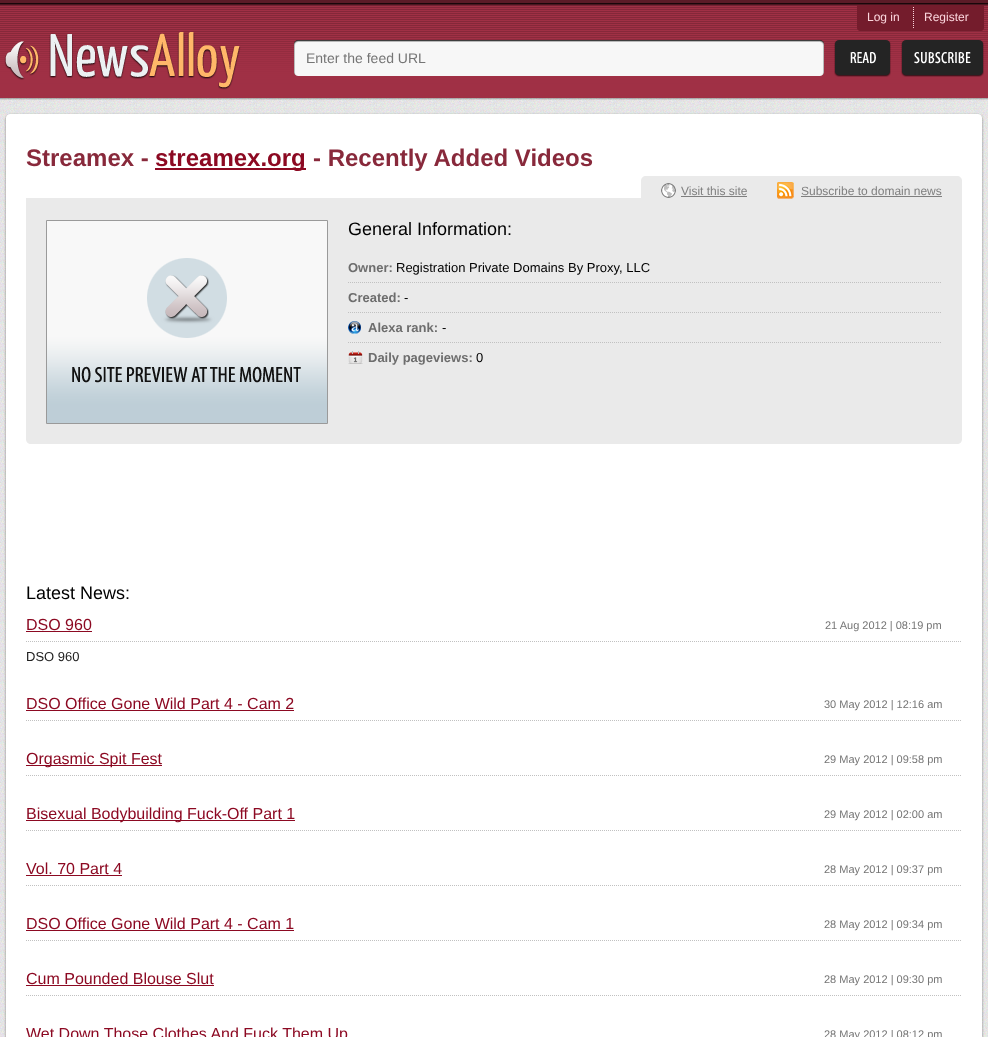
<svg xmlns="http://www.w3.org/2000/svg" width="988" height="1037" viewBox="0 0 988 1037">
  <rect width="100%" height="100%" fill="#fff"/>
  <image x="0" y="98" width="988" height="939" href="img/8.png"/>
  <image x="0" y="0" width="988" height="100" href="img/1.png"/>
  <path d="M857 5H984V28C984 29.5 982.5 31 981 31H860C858.5 31 857 29.5 857 28Z" fill="#741c2c"/>
  <path d="M913.5 7V29" fill="none" stroke="#fcd6dd" stroke-dasharray="1 1"/>
  <image x="4" y="32" width="237" height="58" href="img/2.png"/>
  <image x="294" y="40" width="4" height="36" href="img/3.png"/>
  <image x="820" y="40" width="4" height="36" href="img/4.png"/>
  <image x="298" y="40" width="522" height="36" href="img/5.png"/>
  <image x="834" y="40" width="57" height="37" href="img/6.png"/>
  <image x="901" y="40" width="83" height="37" href="img/7.png"/>
  <path d="M4 113h980v1H4z" fill="#0000000d"/>
  <image x="982" y="120" width="2" height="917" href="img/9.png"/>
  <image x="4" y="120" width="2" height="917" href="img/10.png"/>
  <path d="M6 114h976v923H6z" fill="#fff"/>
  <image x="4" y="113" width="7" height="7" href="img/11.png"/>
  <image x="977" y="113" width="7" height="7" href="img/12.png"/>
  <path d="M155 168h151v2H155z" fill="#8c0922"/>
  <path d="M26 198h615v2H26z" fill="#eaeaea"/>
  <path d="M26 200H962V439C962 442 960 444 957 444H31C28 444 26 442 26 439Z" fill="#eaeaea"/>
  <path d="M646 176H957C960 176 962 178 962 181V203H641V181C641 178 643 176 646 176Z" fill="#eaeaea"/>
  <image x="661" y="183" width="15" height="15" href="img/13.png"/>
  <path d="M681 196h66v1H681z" fill="#7f7f7f"/>
  <image x="777" y="182" width="17" height="17" href="img/14.png"/>
  <path d="M801 196h141v1H801z" fill="#7f7f7f"/>
  <path d="M46.5 220.5h281v203H46.5z" fill="none" stroke="#9a9a9a"/>
  <image x="47" y="221" width="280" height="202" href="img/15.png"/>
  <path d="M348 282.5H942" fill="none" stroke="#c1c1c1" stroke-dasharray="1 1"/>
  <path d="M348 312.5H942" fill="none" stroke="#c1c1c1" stroke-dasharray="1 1"/>
  <image x="348" y="321" width="13" height="13" href="img/16.png"/>
  <path d="M348 342.5H942" fill="none" stroke="#c1c1c1" stroke-dasharray="1 1"/>
  <image x="348" y="351" width="15" height="13" href="img/17.png"/>
  <path d="M26 641.5H962" fill="none" stroke="#c1c1c1" stroke-dasharray="1 1"/>
  <path d="M26 631h66v1H26z" fill="#8c0922"/>
  <path d="M26 720.5H962" fill="none" stroke="#c1c1c1" stroke-dasharray="1 1"/>
  <path d="M26 710h268v1H26z" fill="#8c0922"/>
  <path d="M26 775.5H962" fill="none" stroke="#c1c1c1" stroke-dasharray="1 1"/>
  <path d="M26 765h136v1H26z" fill="#8c0922"/>
  <path d="M26 830.5H962" fill="none" stroke="#c1c1c1" stroke-dasharray="1 1"/>
  <path d="M26 820h269v1H26z" fill="#8c0922"/>
  <path d="M26 885.5H962" fill="none" stroke="#c1c1c1" stroke-dasharray="1 1"/>
  <path d="M26 875h96v1H26z" fill="#8c0922"/>
  <path d="M26 940.5H962" fill="none" stroke="#c1c1c1" stroke-dasharray="1 1"/>
  <path d="M26 930h268v1H26z" fill="#8c0922"/>
  <path d="M26 995.5H962" fill="none" stroke="#c1c1c1" stroke-dasharray="1 1"/>
  <path d="M26 985h188v1H26z" fill="#8c0922"/>
  <g font-family="Liberation Sans" font-size="12" fill="#fcd6dd">
    <text x="867" y="21">Log in</text>
    <text x="924" y="21">Register</text>
  </g>
  <text x="306" y="63" font-family="Liberation Sans" font-size="14" fill="#757575">Enter the feed URL</text>
  <text x="26" y="166" font-family="Liberation Sans" font-size="24" font-weight="bold" fill="#88293b">Streamex -</text>
  <text x="155" y="166" font-family="Liberation Sans" font-size="24" font-weight="bold" fill="#8c0922">streamex.org</text>
  <text x="313" y="166" font-family="Liberation Sans" font-size="24" font-weight="bold" fill="#88293b">- Recently Added Videos</text>
  <g font-family="Liberation Sans" font-size="12" fill="#7f7f7f">
    <text x="681" y="195">Visit this site</text>
    <text x="801" y="195">Subscribe to domain news</text>
  </g>
  <text x="348" y="235" font-family="Liberation Sans" font-size="18" fill="#000">General Information:</text>
  <text x="348" y="272" font-family="Liberation Sans" font-size="13" font-weight="bold" fill="#6d6d6d">Owner:</text>
  <text x="396" y="272" font-family="Liberation Sans" font-size="13" fill="#000">Registration Private Domains By Proxy, LLC</text>
  <text x="348" y="302" font-family="Liberation Sans" font-size="13" font-weight="bold" fill="#6d6d6d">Created:</text>
  <text x="404" y="302" font-family="Liberation Sans" font-size="13" fill="#000">-</text>
  <text x="368" y="332" font-family="Liberation Sans" font-size="13" font-weight="bold" fill="#6d6d6d">Alexa rank:</text>
  <text x="442" y="332" font-family="Liberation Sans" font-size="13" fill="#000">-</text>
  <text x="368" y="362" font-family="Liberation Sans" font-size="13" font-weight="bold" fill="#6d6d6d">Daily pageviews:</text>
  <text x="476" y="362" font-family="Liberation Sans" font-size="13" fill="#000">0</text>
  <text x="26" y="599" font-family="Liberation Sans" font-size="18" fill="#000">Latest News:</text>
  <text x="26" y="630" font-family="Liberation Sans" font-size="16" fill="#8c0922">DSO 960</text>
  <text x="825" y="629" font-family="Liberation Sans" font-size="11" fill="#757575">21 Aug 2012 | 08:19 pm</text>
  <text x="26" y="661" font-family="Liberation Sans" font-size="13" fill="#202020">DSO 960</text>
  <text x="26" y="709" font-family="Liberation Sans" font-size="16" fill="#8c0922">DSO Office Gone Wild Part 4 - Cam 2</text>
  <text x="824" y="708" font-family="Liberation Sans" font-size="11" fill="#757575">30 May 2012 | 12:16 am</text>
  <text x="26" y="764" font-family="Liberation Sans" font-size="16" fill="#8c0922">Orgasmic Spit Fest</text>
  <text x="824" y="763" font-family="Liberation Sans" font-size="11" fill="#757575">29 May 2012 | 09:58 pm</text>
  <text x="26" y="819" font-family="Liberation Sans" font-size="16" fill="#8c0922">Bisexual Bodybuilding Fuck-Off Part 1</text>
  <text x="824" y="818" font-family="Liberation Sans" font-size="11" fill="#757575">29 May 2012 | 02:00 am</text>
  <text x="26" y="874" font-family="Liberation Sans" font-size="16" fill="#8c0922">Vol. 70 Part 4</text>
  <text x="824" y="873" font-family="Liberation Sans" font-size="11" fill="#757575">28 May 2012 | 09:37 pm</text>
  <text x="26" y="929" font-family="Liberation Sans" font-size="16" fill="#8c0922">DSO Office Gone Wild Part 4 - Cam 1</text>
  <text x="824" y="928" font-family="Liberation Sans" font-size="11" fill="#757575">28 May 2012 | 09:34 pm</text>
  <text x="26" y="984" font-family="Liberation Sans" font-size="16" fill="#8c0922">Cum Pounded Blouse Slut</text>
  <text x="824" y="983" font-family="Liberation Sans" font-size="11" fill="#757575">28 May 2012 | 09:30 pm</text>
  <text x="26" y="1039" font-family="Liberation Sans" font-size="16" fill="#8c0922">Wet Down Those Clothes And Fuck Them Up</text>
  <text x="824" y="1038" font-family="Liberation Sans" font-size="11" fill="#757575">28 May 2012 | 08:12 pm</text>
</svg>
